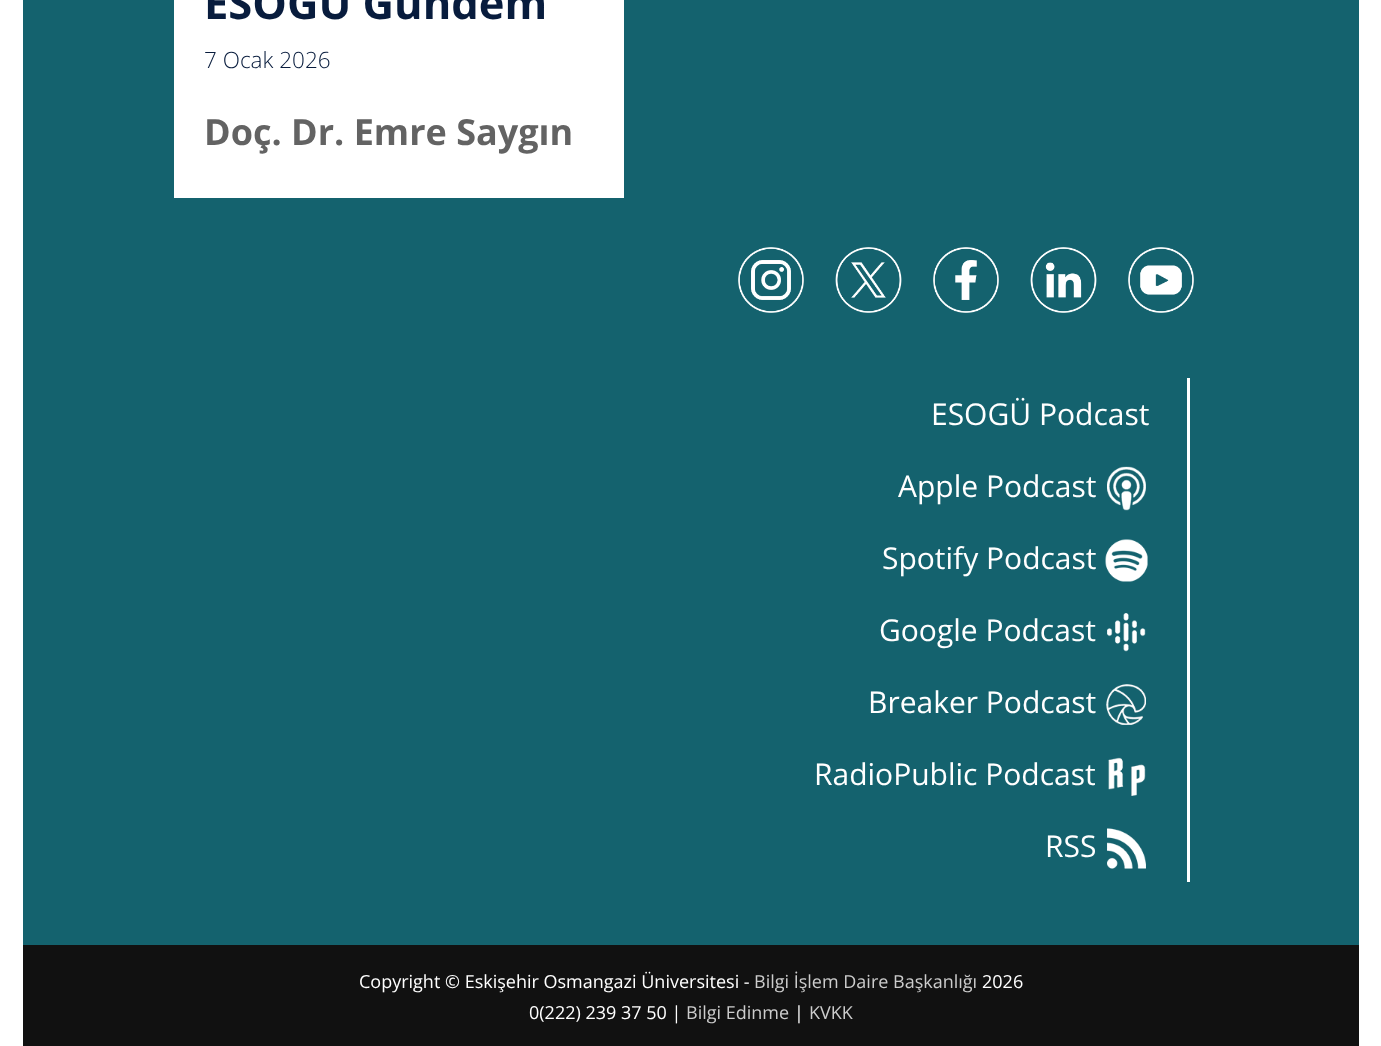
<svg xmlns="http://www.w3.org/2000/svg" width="1381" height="1046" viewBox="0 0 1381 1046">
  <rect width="100%" height="100%" fill="#fff"/>
  <path d="M23 0h1336v945H23z" fill="#14626e"/>
  <path d="M174 0h450v198H174z" fill="#fff"/>
  <image x="738" y="247" width="66" height="66" href="img/1.png"/>
  <image x="835" y="247" width="67" height="66" href="img/2.png"/>
  <image x="933" y="247" width="66" height="66" href="img/3.png"/>
  <image x="1030" y="247" width="67" height="66" href="img/4.png"/>
  <image x="1128" y="247" width="66" height="66" href="img/5.png"/>
  <path d="M1187 378h3v504H1187z" fill="#fff"/>
  <image x="1107" y="466" width="39" height="45" href="img/6.png"/>
  <image x="1105" y="539" width="43" height="43" href="img/7.png"/>
  <image x="1107" y="613" width="39" height="39" href="img/8.png"/>
  <image x="1106" y="684" width="40" height="41" href="img/9.png"/>
  <image x="1108" y="757" width="38" height="39" href="img/10.png"/>
  <image x="1107" y="828" width="39" height="41" href="img/11.png"/>
  <path d="M23 945h1336v101H23z" fill="#111"/>
  <text x="204" y="19" font-family="Open Sans" font-size="43.5" font-weight="bold" fill="#081c3d">ESOGÜ Gündem</text>
  <text x="204" y="68" font-family="Open Sans" font-size="22.5" font-weight="300" fill="#081c3d">7 Ocak 2026</text>
  <text x="204" y="145" font-family="Open Sans" font-size="36" font-weight="bold" fill="#636363">Doç. Dr. Emre Saygın</text>
  <g font-family="Open Sans" font-size="30" fill="#fff">
    <text x="931" y="425">ESOGÜ Podcast</text>
    <text x="898" y="497">Apple Podcast</text>
    <text x="882" y="569">Spotify Podcast</text>
    <text x="879" y="641">Google Podcast</text>
    <text x="868" y="713">Breaker Podcast</text>
    <text x="814" y="785">RadioPublic Podcast</text>
    <text x="1045" y="857">RSS</text>
  </g>
  <text x="359" y="988" font-family="Open Sans" font-size="18" fill="#fff">Copyright © Eskişehir Osmangazi Üniversitesi -</text>
  <text x="754" y="988" font-family="Open Sans" font-size="18" fill="#ccc">Bilgi İşlem Daire Başkanlığı</text>
  <g font-family="Open Sans" font-size="18" fill="#fff">
    <text x="982" y="988">2026</text>
    <text x="529" y="1019">0(222) 239 37 50 |</text>
  </g>
  <text x="686" y="1019" font-family="Open Sans" font-size="18" fill="#ccc">Bilgi Edinme</text>
  <text x="794" y="1019" font-family="Open Sans" font-size="18" fill="#fff">|</text>
  <text x="809" y="1019" font-family="Open Sans" font-size="18" fill="#ccc">KVKK</text>
</svg>
